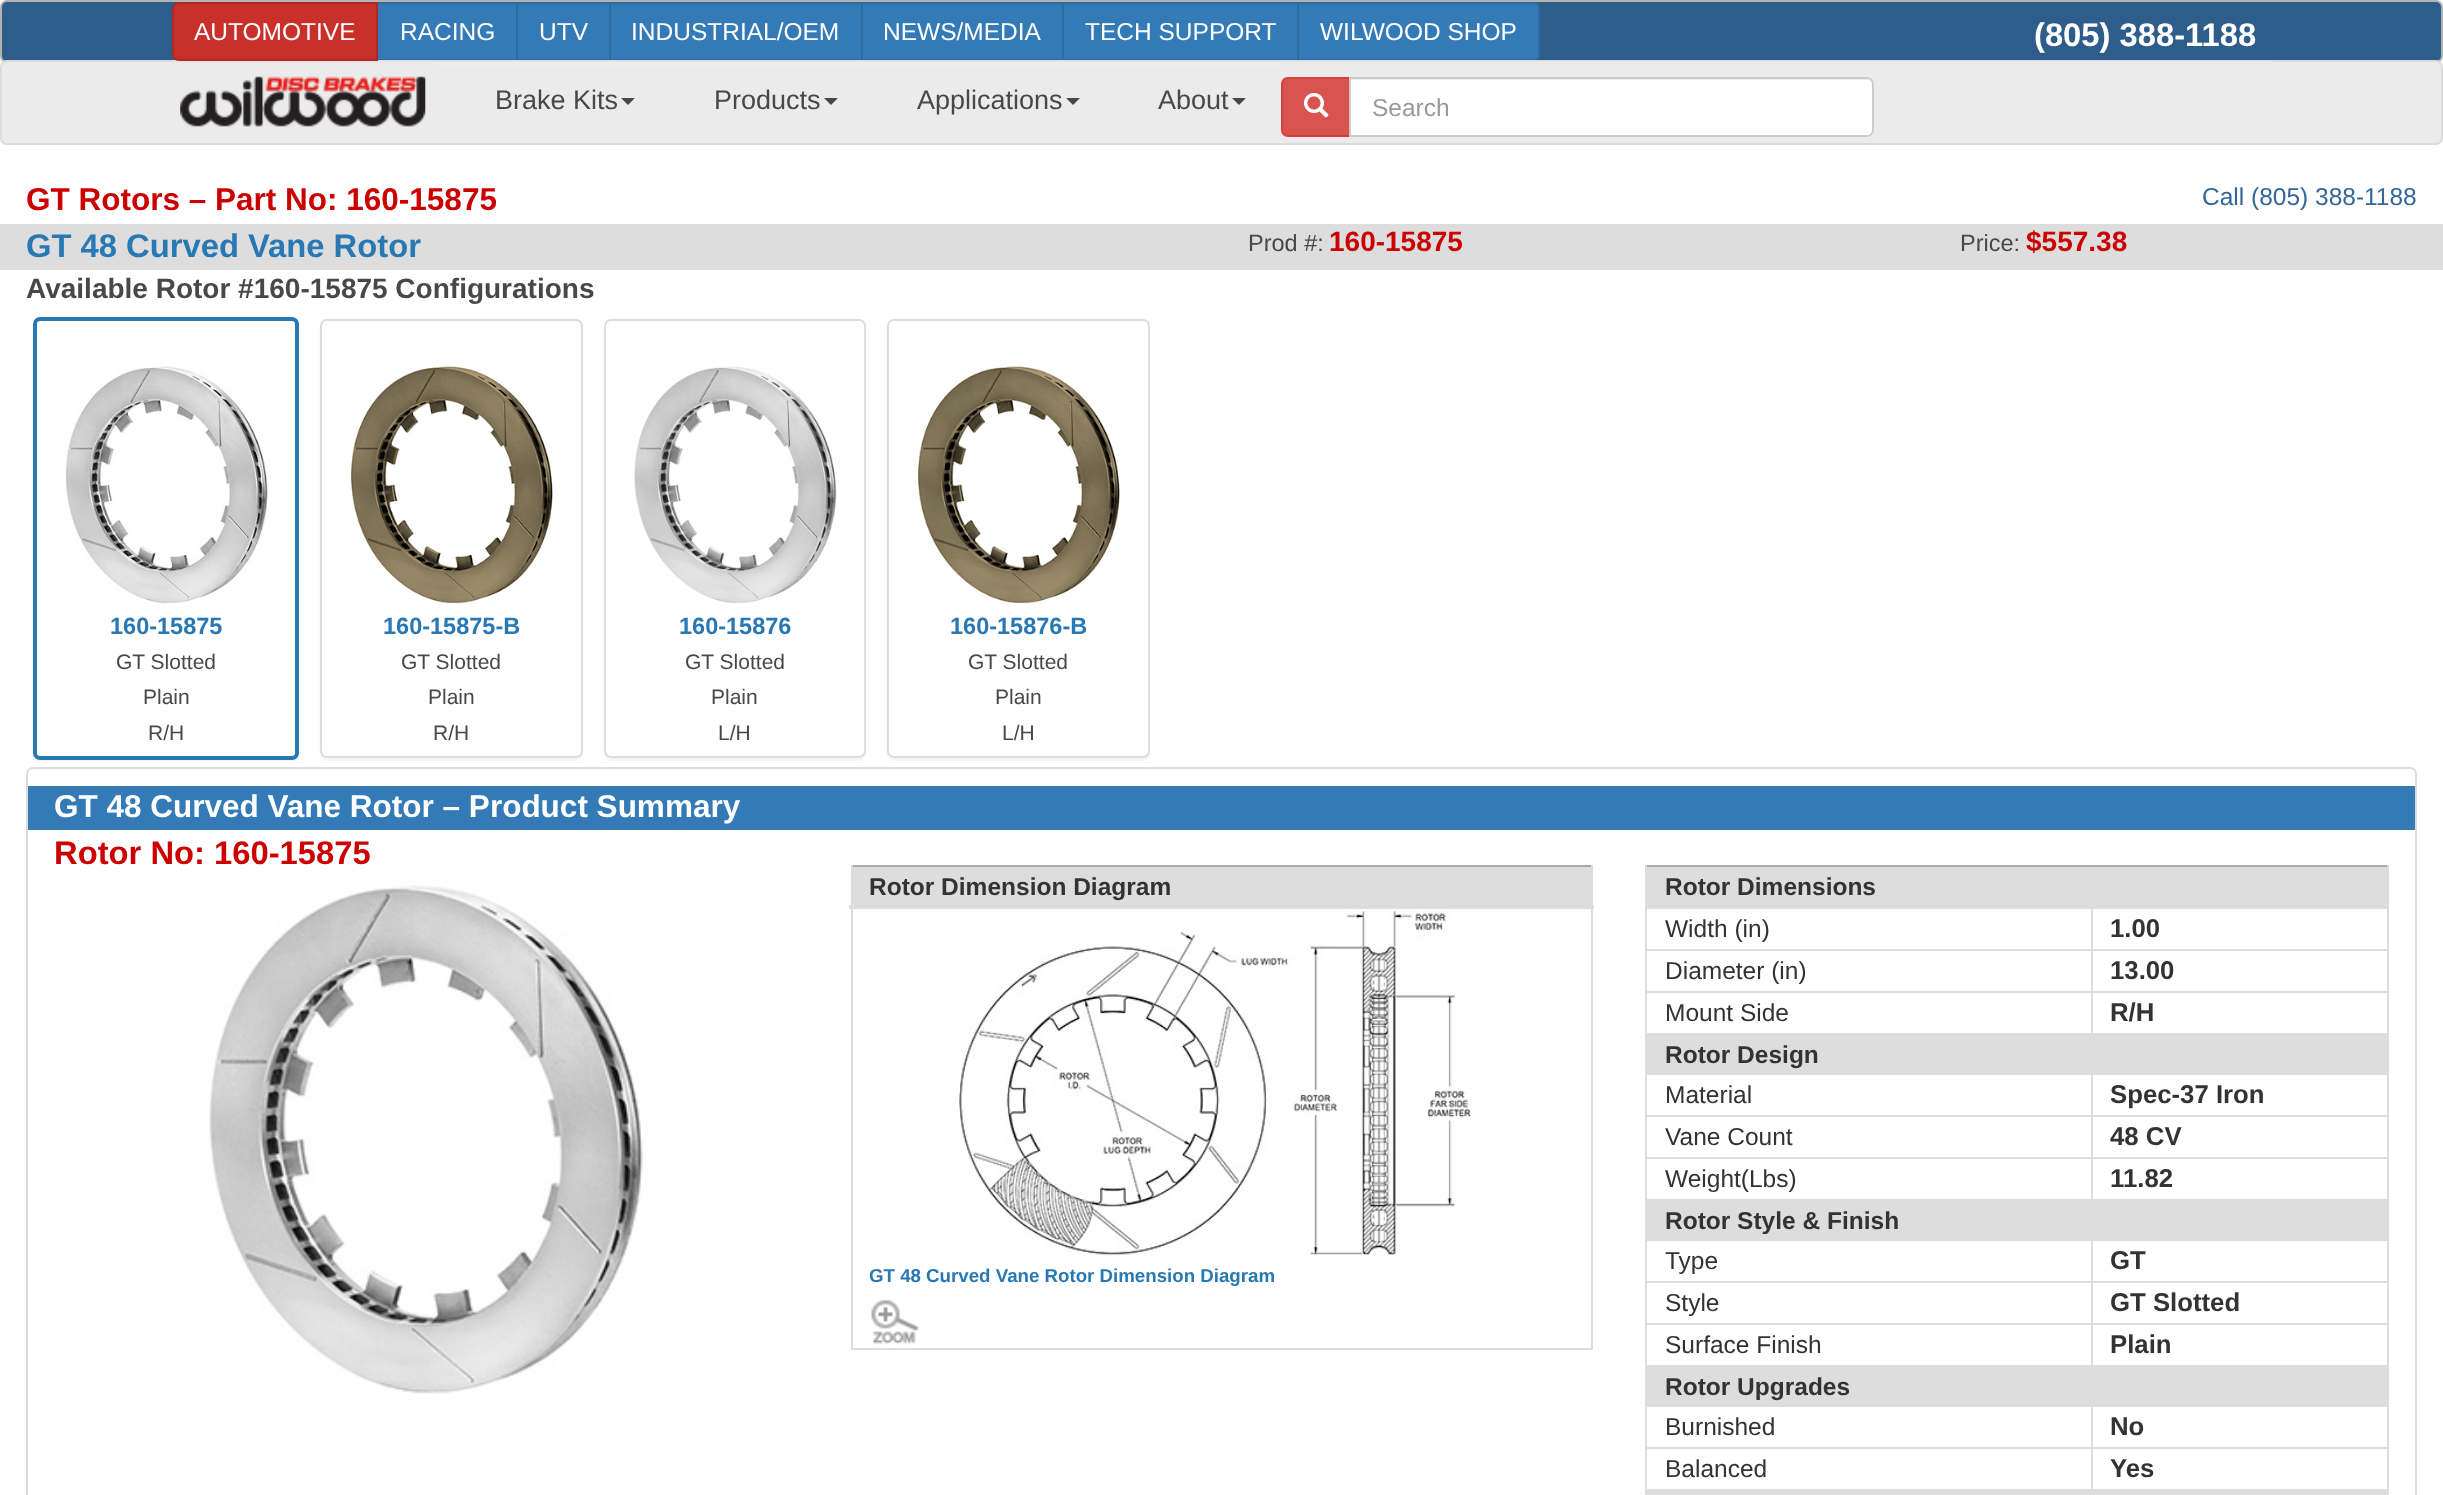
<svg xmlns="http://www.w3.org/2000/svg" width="2443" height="1495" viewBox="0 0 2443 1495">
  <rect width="100%" height="100%" fill="#fff"/>
  <rect x="1" y="1" width="2441" height="61" rx="6" fill="#2f5d8b" stroke="#b3b3b3" stroke-width="2"/>
  <path d="M377 3h140v57H377z" fill="#337ab7" stroke="#2e6da4" stroke-width="2"/>
  <path d="M517 3h93v57H517z" fill="#337ab7" stroke="#2e6da4" stroke-width="2"/>
  <path d="M610 3h252v57H610z" fill="#337ab7" stroke="#2e6da4" stroke-width="2"/>
  <path d="M862 3h201v57H862z" fill="#337ab7" stroke="#2e6da4" stroke-width="2"/>
  <path d="M1063 3h235v57H1063z" fill="#337ab7" stroke="#2e6da4" stroke-width="2"/>
  <path d="M1298 3H1533C1536.5 3 1539 5.5 1539 9V54C1539 57.5 1536.5 60 1533 60H1298Z" fill="#337ab7" stroke="#2e6da4" stroke-width="2"/>
  <rect x="1" y="61" width="2441" height="83" rx="6" fill="#ebebeb" stroke="#dbdbdb" stroke-width="2"/>
  <path d="M179 3H377V60H179C175.5 60 173 57.5 173 54V9C173 5.5 175.5 3 179 3Z" fill="#c9302c" stroke="#ac2925" stroke-width="2"/>
  <image x="180" y="76" width="246" height="51" href="img/1.png"/>
  <path d="M434 63h847v2H434z" fill="#efefef"/>
  <path d="M621 98H635L628 105Z" fill="#484848"/>
  <path d="M824 98H838L831 105Z" fill="#484848"/>
  <path d="M1066 98H1080L1073 105Z" fill="#484848"/>
  <path d="M1232 98H1246L1239 105Z" fill="#484848"/>
  <path d="M172 61h2100v2H172z" fill="#e7e7e7"/>
  <path d="M1288 78H1350V136H1288C1284.5 136 1282 133.5 1282 130V84C1282 80.5 1284.5 78 1288 78Z" fill="#d9534f" stroke="#d43f3a" stroke-width="2"/>
  <image x="1303" y="92" width="26" height="26" href="img/2.png"/>
  <path d="M1349 77H1867C1871 77 1874 80 1874 84V130C1874 134 1871 137 1867 137H1349Z" fill="#fff"/>
  <path d="M1351 80H1867C1870 80 1872 83 1872 86V131L1871 134C1872 133 1873 131 1873 130V84C1873 81 1871 79 1868 79H1351Z" fill="#ececec"/>
  <path d="M1350 78H1867C1870.5 78 1873 80.5 1873 84V130C1873 133.5 1870.5 136 1867 136H1350Z" fill="none" stroke="#ccc" stroke-width="2"/>
  <path d="M0 224h2443v46H0z" fill="#ddd"/>
  <rect x="33" y="319" width="266" height="442" rx="7" fill="#0000000d" filter="blur(1px)"/>
  <rect x="35" y="319" width="262" height="439" rx="5" fill="#fff" stroke="#2878b4" stroke-width="4"/>
  <image x="65" y="366" width="203" height="238" href="img/3.png"/>
  <rect x="320" y="320" width="263" height="440" rx="7" fill="#0000000d" filter="blur(1px)"/>
  <rect x="321" y="320" width="261" height="437" rx="6" fill="#fff" stroke="#ddd" stroke-width="2"/>
  <image x="350" y="366" width="203" height="238" href="img/4.png"/>
  <rect x="604" y="320" width="262" height="440" rx="7" fill="#0000000d" filter="blur(1px)"/>
  <rect x="605" y="320" width="260" height="437" rx="6" fill="#fff" stroke="#ddd" stroke-width="2"/>
  <image x="634" y="366" width="203" height="238" href="img/5.png"/>
  <rect x="887" y="320" width="263" height="440" rx="7" fill="#0000000d" filter="blur(1px)"/>
  <rect x="888" y="320" width="261" height="437" rx="6" fill="#fff" stroke="#ddd" stroke-width="2"/>
  <image x="917" y="366" width="203" height="238" href="img/6.png"/>
  <rect x="27" y="768" width="2389" height="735" rx="6" fill="none" stroke="#ddd" stroke-width="2"/>
  <path d="M28 786h2387v44H28z" fill="#337ab7"/>
  <image x="209" y="885" width="434" height="509" href="img/7.png"/>
  <path d="M851 865h742v2H851z" fill="#a9a9a9"/>
  <path d="M853 867h738v38H853z" fill="#ddd"/>
  <path d="M1591 865h2v484H1591z" fill="#ddd"/>
  <path d="M851 1348h742v2H851z" fill="#ddd"/>
  <path d="M851 865h2v484H851z" fill="#ddd"/>
  <path d="M849 905h745v4H849z" fill="#ddd"/>
  <image x="959" y="911" width="513" height="344" href="img/8.png"/>
  <image x="871" y="1299" width="48" height="46" href="img/9.png"/>
  <path d="M1645 865h744v2H1645z" fill="#a9a9a9"/>
  <path d="M1647 867h740v40H1647z" fill="#ddd"/>
  <path d="M2091 907h298v2H2091z" fill="#ddd"/>
  <path d="M2091 949h298v2H2091z" fill="#ddd"/>
  <path d="M2091 991h298v2H2091z" fill="#ddd"/>
  <path d="M1645 1033h744v2H1645z" fill="#ddd"/>
  <path d="M2091 991h2v43H2091z" fill="#ddd"/>
  <path d="M1645 991h448v2H1645z" fill="#ddd"/>
  <path d="M2091 949h2v43H2091z" fill="#ddd"/>
  <path d="M1645 949h448v2H1645z" fill="#ddd"/>
  <path d="M2091 907h2v43H2091z" fill="#ddd"/>
  <path d="M1645 907h448v2H1645z" fill="#ddd"/>
  <path d="M2091 1073h298v2H2091z" fill="#ddd"/>
  <path d="M2091 1115h298v2H2091z" fill="#ddd"/>
  <path d="M2091 1157h298v2H2091z" fill="#ddd"/>
  <path d="M1645 1199h744v2H1645z" fill="#ddd"/>
  <path d="M2091 1157h2v44H2091z" fill="#ddd"/>
  <path d="M1645 1157h448v2H1645z" fill="#ddd"/>
  <path d="M2091 1115h2v44H2091z" fill="#ddd"/>
  <path d="M1645 1115h448v2H1645z" fill="#ddd"/>
  <path d="M2091 1073h2v44H2091z" fill="#ddd"/>
  <path d="M1645 1073h448v2H1645z" fill="#ddd"/>
  <path d="M2091 1239h298v2H2091z" fill="#ddd"/>
  <path d="M2091 1281h298v2H2091z" fill="#ddd"/>
  <path d="M2091 1323h298v2H2091z" fill="#ddd"/>
  <path d="M1645 1365h744v2H1645z" fill="#ddd"/>
  <path d="M2091 1323h2v44H2091z" fill="#ddd"/>
  <path d="M1645 1323h448v2H1645z" fill="#ddd"/>
  <path d="M2091 1281h2v44H2091z" fill="#ddd"/>
  <path d="M1645 1281h448v2H1645z" fill="#ddd"/>
  <path d="M2091 1239h2v44H2091z" fill="#ddd"/>
  <path d="M1645 1239h448v2H1645z" fill="#ddd"/>
  <path d="M2091 1405h298v2H2091z" fill="#ddd"/>
  <path d="M2091 1447h298v2H2091z" fill="#ddd"/>
  <path d="M1645 1489h744v2H1645z" fill="#ddd"/>
  <path d="M2091 1447h2v44H2091z" fill="#ddd"/>
  <path d="M1645 1447h448v2H1645z" fill="#ddd"/>
  <path d="M2091 1405h2v44H2091z" fill="#ddd"/>
  <path d="M1645 1405h448v2H1645z" fill="#ddd"/>
  <path d="M1645 1489h2v6H1645z" fill="#ddd"/>
  <path d="M1645 1447h2v44H1645z" fill="#ddd"/>
  <path d="M1645 1405h2v44H1645z" fill="#ddd"/>
  <path d="M1645 1365h2v42H1645z" fill="#ddd"/>
  <path d="M1645 1323h2v44H1645z" fill="#ddd"/>
  <path d="M1645 1281h2v44H1645z" fill="#ddd"/>
  <path d="M1645 1239h2v44H1645z" fill="#ddd"/>
  <path d="M1645 1199h2v42H1645z" fill="#ddd"/>
  <path d="M1645 1157h2v44H1645z" fill="#ddd"/>
  <path d="M1645 1115h2v44H1645z" fill="#ddd"/>
  <path d="M1645 1073h2v44H1645z" fill="#ddd"/>
  <path d="M1645 1033h2v42H1645z" fill="#ddd"/>
  <path d="M1645 991h2v43H1645z" fill="#ddd"/>
  <path d="M1645 949h2v43H1645z" fill="#ddd"/>
  <path d="M1645 865h2v85H1645z" fill="#ddd"/>
  <path d="M2387 1489h2v6H2387z" fill="#ddd"/>
  <path d="M2387 1447h2v44H2387z" fill="#ddd"/>
  <path d="M2387 1405h2v44H2387z" fill="#ddd"/>
  <path d="M2387 1365h2v42H2387z" fill="#ddd"/>
  <path d="M2387 1323h2v44H2387z" fill="#ddd"/>
  <path d="M2387 1281h2v44H2387z" fill="#ddd"/>
  <path d="M2387 1239h2v44H2387z" fill="#ddd"/>
  <path d="M2387 1199h2v42H2387z" fill="#ddd"/>
  <path d="M2387 1157h2v44H2387z" fill="#ddd"/>
  <path d="M2387 1115h2v44H2387z" fill="#ddd"/>
  <path d="M2387 1073h2v44H2387z" fill="#ddd"/>
  <path d="M2387 1033h2v42H2387z" fill="#ddd"/>
  <path d="M2387 991h2v43H2387z" fill="#ddd"/>
  <path d="M2387 949h2v43H2387z" fill="#ddd"/>
  <path d="M2387 865h2v85H2387z" fill="#ddd"/>
  <path d="M1647 1035h740v38H1647z" fill="#ddd"/>
  <path d="M1647 1201h740v38H1647z" fill="#ddd"/>
  <path d="M1647 1367h740v38H1647z" fill="#ddd"/>
  <path d="M1647 1491h740v4H1647z" fill="#ddd"/>
  <g font-family="Liberation Sans" font-size="24.5" fill="#fff">
    <text x="194" y="40">AUTOMOTIVE</text>
    <text x="400" y="40">RACING</text>
    <text x="539" y="40">UTV</text>
    <text x="631" y="40">INDUSTRIAL/OEM</text>
    <text x="883" y="40">NEWS/MEDIA</text>
    <text x="1085" y="40">TECH SUPPORT</text>
    <text x="1320" y="40">WILWOOD SHOP</text>
  </g>
  <text x="2034" y="46" font-family="Liberation Sans" font-size="32.75" font-weight="bold" fill="#fff">(805) 388-1188</text>
  <g font-family="Liberation Sans" font-size="27" fill="#484848">
    <text x="495" y="109">Brake Kits</text>
    <text x="714" y="109">Products</text>
    <text x="917" y="109">Applications</text>
    <text x="1158" y="109">About</text>
  </g>
  <text x="1372" y="116" font-family="Liberation Sans" font-size="24.5" fill="#999">Search</text>
  <text x="26" y="210" font-family="Liberation Sans" font-size="31.5" font-weight="bold" fill="#c00">GT Rotors – Part No: 160-15875</text>
  <text x="2202" y="205" font-family="Liberation Sans" font-size="24.5" fill="#369">Call (805) 388-1188</text>
  <text x="26" y="257" font-family="Liberation Sans" font-size="32.75" font-weight="bold" fill="#2878b4">GT 48 Curved Vane Rotor</text>
  <text x="1248" y="251" font-family="Liberation Sans" font-size="23.5" fill="#484848">Prod #:</text>
  <text x="1329" y="251" font-family="Liberation Sans" font-size="28" font-weight="bold" fill="#c00">160-15875</text>
  <text x="1960" y="251" font-family="Liberation Sans" font-size="23.5" fill="#484848">Price:</text>
  <text x="2026" y="251" font-family="Liberation Sans" font-size="28" font-weight="bold" fill="#c00">$557.38</text>
  <text x="26" y="298" font-family="Liberation Sans" font-size="28" font-weight="bold" fill="#484848">Available Rotor #160-15875 Configurations</text>
  <text x="110" y="634" font-family="Liberation Sans" font-size="23.5" font-weight="bold" fill="#2878b4">160-15875</text>
  <g font-family="Liberation Sans" font-size="21" fill="#484848">
    <text x="116" y="669">GT Slotted</text>
    <text x="143" y="704">Plain</text>
    <text x="148" y="740">R/H</text>
  </g>
  <text x="383" y="634" font-family="Liberation Sans" font-size="23.5" font-weight="bold" fill="#2878b4">160-15875-B</text>
  <g font-family="Liberation Sans" font-size="21" fill="#484848">
    <text x="401" y="669">GT Slotted</text>
    <text x="428" y="704">Plain</text>
    <text x="433" y="740">R/H</text>
  </g>
  <text x="679" y="634" font-family="Liberation Sans" font-size="23.5" font-weight="bold" fill="#2878b4">160-15876</text>
  <g font-family="Liberation Sans" font-size="21" fill="#484848">
    <text x="685" y="669">GT Slotted</text>
    <text x="711" y="704">Plain</text>
    <text x="718" y="740">L/H</text>
  </g>
  <text x="950" y="634" font-family="Liberation Sans" font-size="23.5" font-weight="bold" fill="#2878b4">160-15876-B</text>
  <g font-family="Liberation Sans" font-size="21" fill="#484848">
    <text x="968" y="669">GT Slotted</text>
    <text x="995" y="704">Plain</text>
    <text x="1002" y="740">L/H</text>
  </g>
  <text x="54" y="817" font-family="Liberation Sans" font-size="31.5" font-weight="bold" fill="#fff">GT 48 Curved Vane Rotor – Product Summary</text>
  <text x="54" y="864" font-family="Liberation Sans" font-size="32.75" font-weight="bold" fill="#c00">Rotor No: 160-15875</text>
  <text x="869" y="895" font-family="Liberation Sans" font-size="24.5" font-weight="bold" fill="#333">Rotor Dimension Diagram</text>
  <text x="869" y="1282" font-family="Liberation Sans" font-size="18.7" font-weight="bold" fill="#2878b4">GT 48 Curved Vane Rotor Dimension Diagram</text>
  <text x="1665" y="895" font-family="Liberation Sans" font-size="24.5" font-weight="bold" fill="#333">Rotor Dimensions</text>
  <text x="1665" y="937" font-family="Liberation Sans" font-size="24.5" fill="#333">Width (in)</text>
  <text x="2110" y="937" font-family="Liberation Sans" font-size="25.75" font-weight="bold" fill="#333">1.00</text>
  <text x="1665" y="979" font-family="Liberation Sans" font-size="24.5" fill="#333">Diameter (in)</text>
  <text x="2110" y="979" font-family="Liberation Sans" font-size="25.75" font-weight="bold" fill="#333">13.00</text>
  <text x="1665" y="1021" font-family="Liberation Sans" font-size="24.5" fill="#333">Mount Side</text>
  <text x="2110" y="1021" font-family="Liberation Sans" font-size="25.75" font-weight="bold" fill="#333">R/H</text>
  <text x="1665" y="1063" font-family="Liberation Sans" font-size="24.5" font-weight="bold" fill="#333">Rotor Design</text>
  <text x="1665" y="1103" font-family="Liberation Sans" font-size="24.5" fill="#333">Material</text>
  <text x="2110" y="1103" font-family="Liberation Sans" font-size="25.75" font-weight="bold" fill="#333">Spec-37 Iron</text>
  <text x="1665" y="1145" font-family="Liberation Sans" font-size="24.5" fill="#333">Vane Count</text>
  <text x="2110" y="1145" font-family="Liberation Sans" font-size="25.75" font-weight="bold" fill="#333">48 CV</text>
  <text x="1665" y="1187" font-family="Liberation Sans" font-size="24.5" fill="#333">Weight(Lbs)</text>
  <text x="2110" y="1187" font-family="Liberation Sans" font-size="25.75" font-weight="bold" fill="#333">11.82</text>
  <text x="1665" y="1229" font-family="Liberation Sans" font-size="24.5" font-weight="bold" fill="#333">Rotor Style &amp; Finish</text>
  <text x="1665" y="1269" font-family="Liberation Sans" font-size="24.5" fill="#333">Type</text>
  <text x="2110" y="1269" font-family="Liberation Sans" font-size="25.75" font-weight="bold" fill="#333">GT</text>
  <text x="1665" y="1311" font-family="Liberation Sans" font-size="24.5" fill="#333">Style</text>
  <text x="2110" y="1311" font-family="Liberation Sans" font-size="25.75" font-weight="bold" fill="#333">GT Slotted</text>
  <text x="1665" y="1353" font-family="Liberation Sans" font-size="24.5" fill="#333">Surface Finish</text>
  <text x="2110" y="1353" font-family="Liberation Sans" font-size="25.75" font-weight="bold" fill="#333">Plain</text>
  <text x="1665" y="1395" font-family="Liberation Sans" font-size="24.5" font-weight="bold" fill="#333">Rotor Upgrades</text>
  <text x="1665" y="1435" font-family="Liberation Sans" font-size="24.5" fill="#333">Burnished</text>
  <text x="2110" y="1435" font-family="Liberation Sans" font-size="25.75" font-weight="bold" fill="#333">No</text>
  <text x="1665" y="1477" font-family="Liberation Sans" font-size="24.5" fill="#333">Balanced</text>
  <text x="2110" y="1477" font-family="Liberation Sans" font-size="25.75" font-weight="bold" fill="#333">Yes</text>
</svg>
